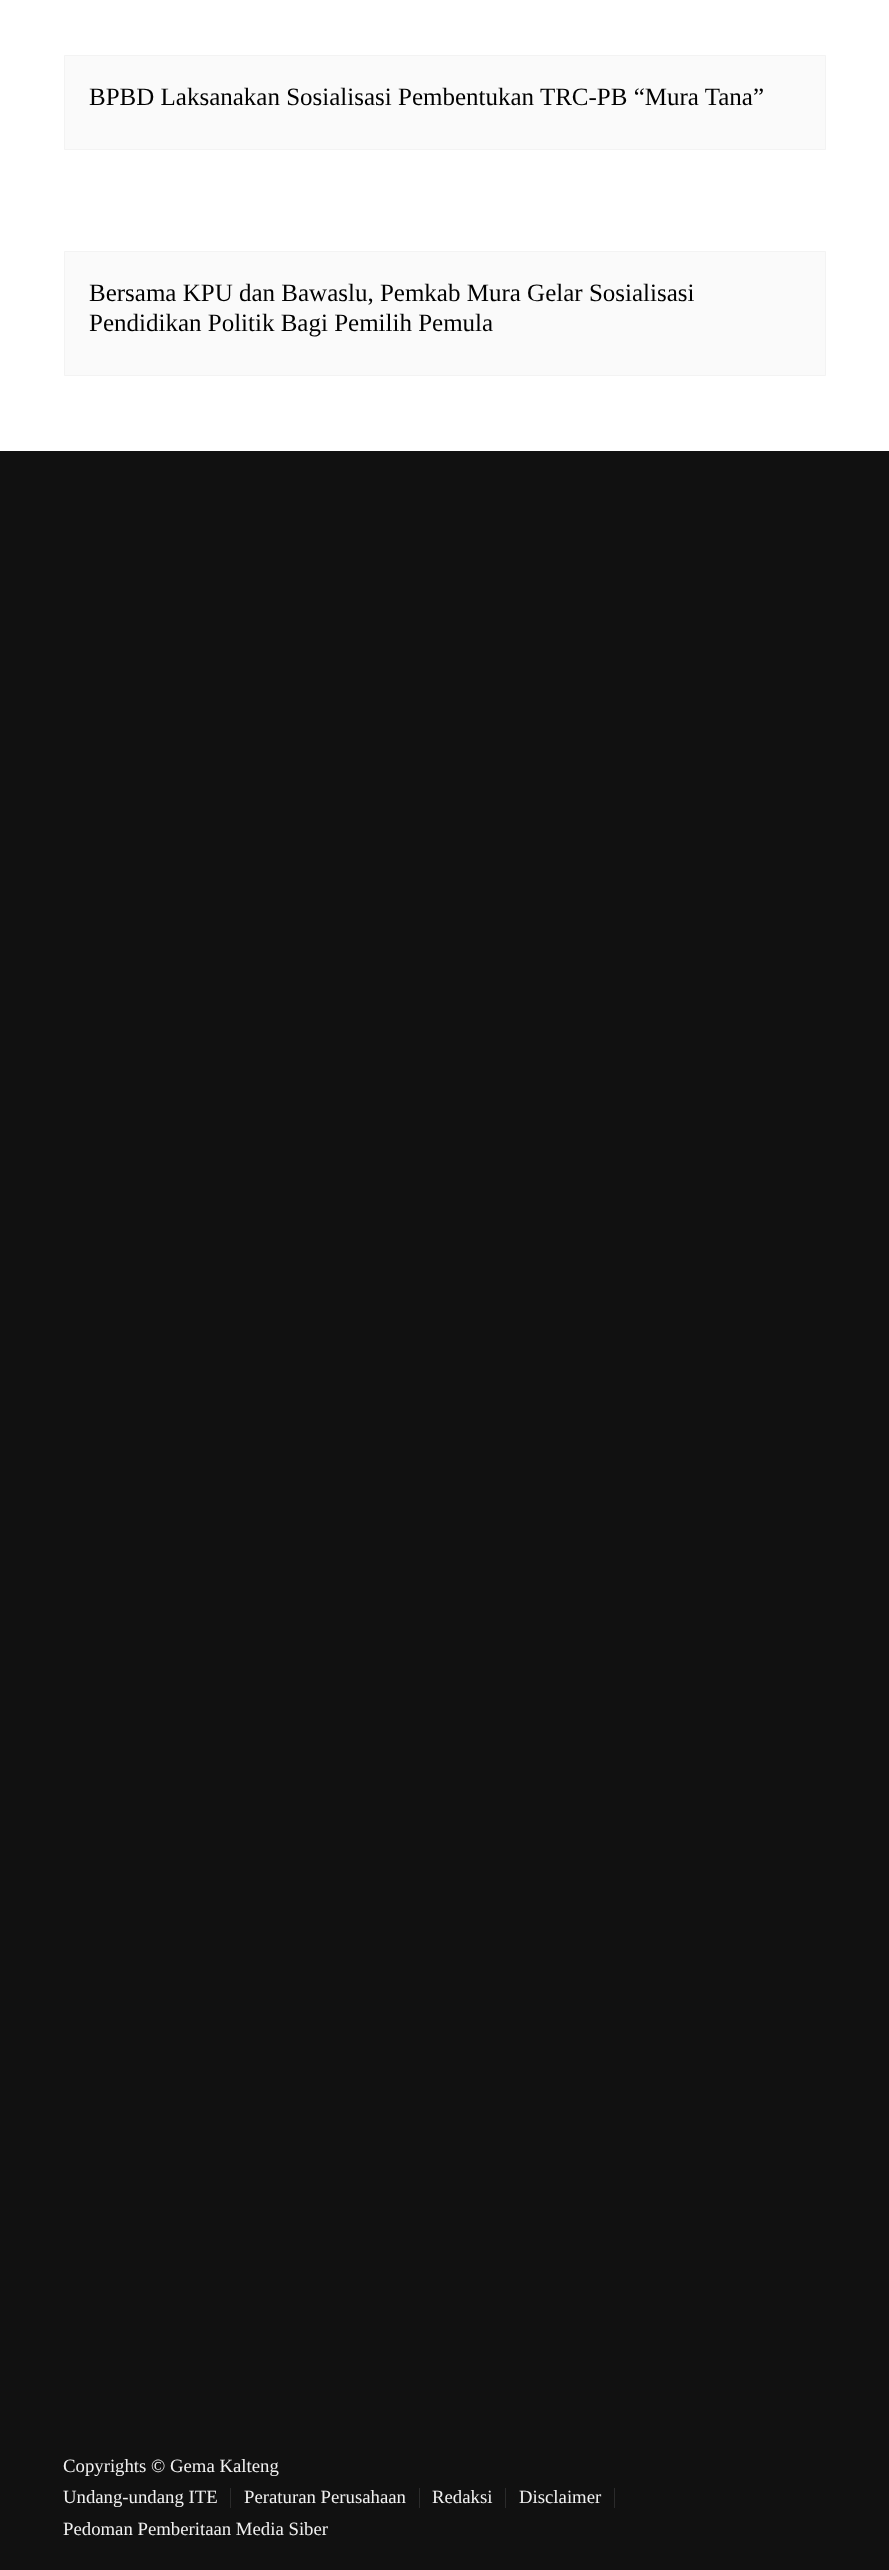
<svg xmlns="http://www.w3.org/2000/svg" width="889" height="2570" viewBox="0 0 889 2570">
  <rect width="100%" height="100%" fill="#fff"/>
  <path d="M64.5 55.5h761v94H64.5z" fill="#fafafa" stroke="#f3f3f3"/>
  <path d="M64.5 251.5h761v124H64.5z" fill="#fafafa" stroke="#f3f3f3"/>
  <path d="M0 451h889v2119H0z" fill="#111"/>
  <path d="M230 2488h1v20H230z" fill="#2b2b2b"/>
  <path d="M419 2488h1v20H419z" fill="#2b2b2b"/>
  <path d="M505 2488h1v20H505z" fill="#2b2b2b"/>
  <path d="M614 2488h1v20H614z" fill="#2b2b2b"/>
  <g font-family="Liberation Serif" font-size="25" fill="#010101">
    <text x="89" y="105">BPBD Laksanakan Sosialisasi Pembentukan TRC-PB “Mura Tana”</text>
    <text x="89" y="301">Bersama KPU dan Bawaslu, Pemkab Mura Gelar Sosialisasi</text>
    <text x="89" y="331">Pendidikan Politik Bagi Pemilih Pemula</text>
  </g>
  <g font-family="Liberation Serif" font-size="18.75" fill="#f1f1f1">
    <text x="63" y="2472">Copyrights © Gema Kalteng</text>
    <text x="63" y="2503">Undang-undang ITE</text>
    <text x="244" y="2503">Peraturan Perusahaan</text>
    <text x="432" y="2503">Redaksi</text>
    <text x="519" y="2503">Disclaimer</text>
    <text x="63" y="2535">Pedoman Pemberitaan Media Siber</text>
  </g>
</svg>
